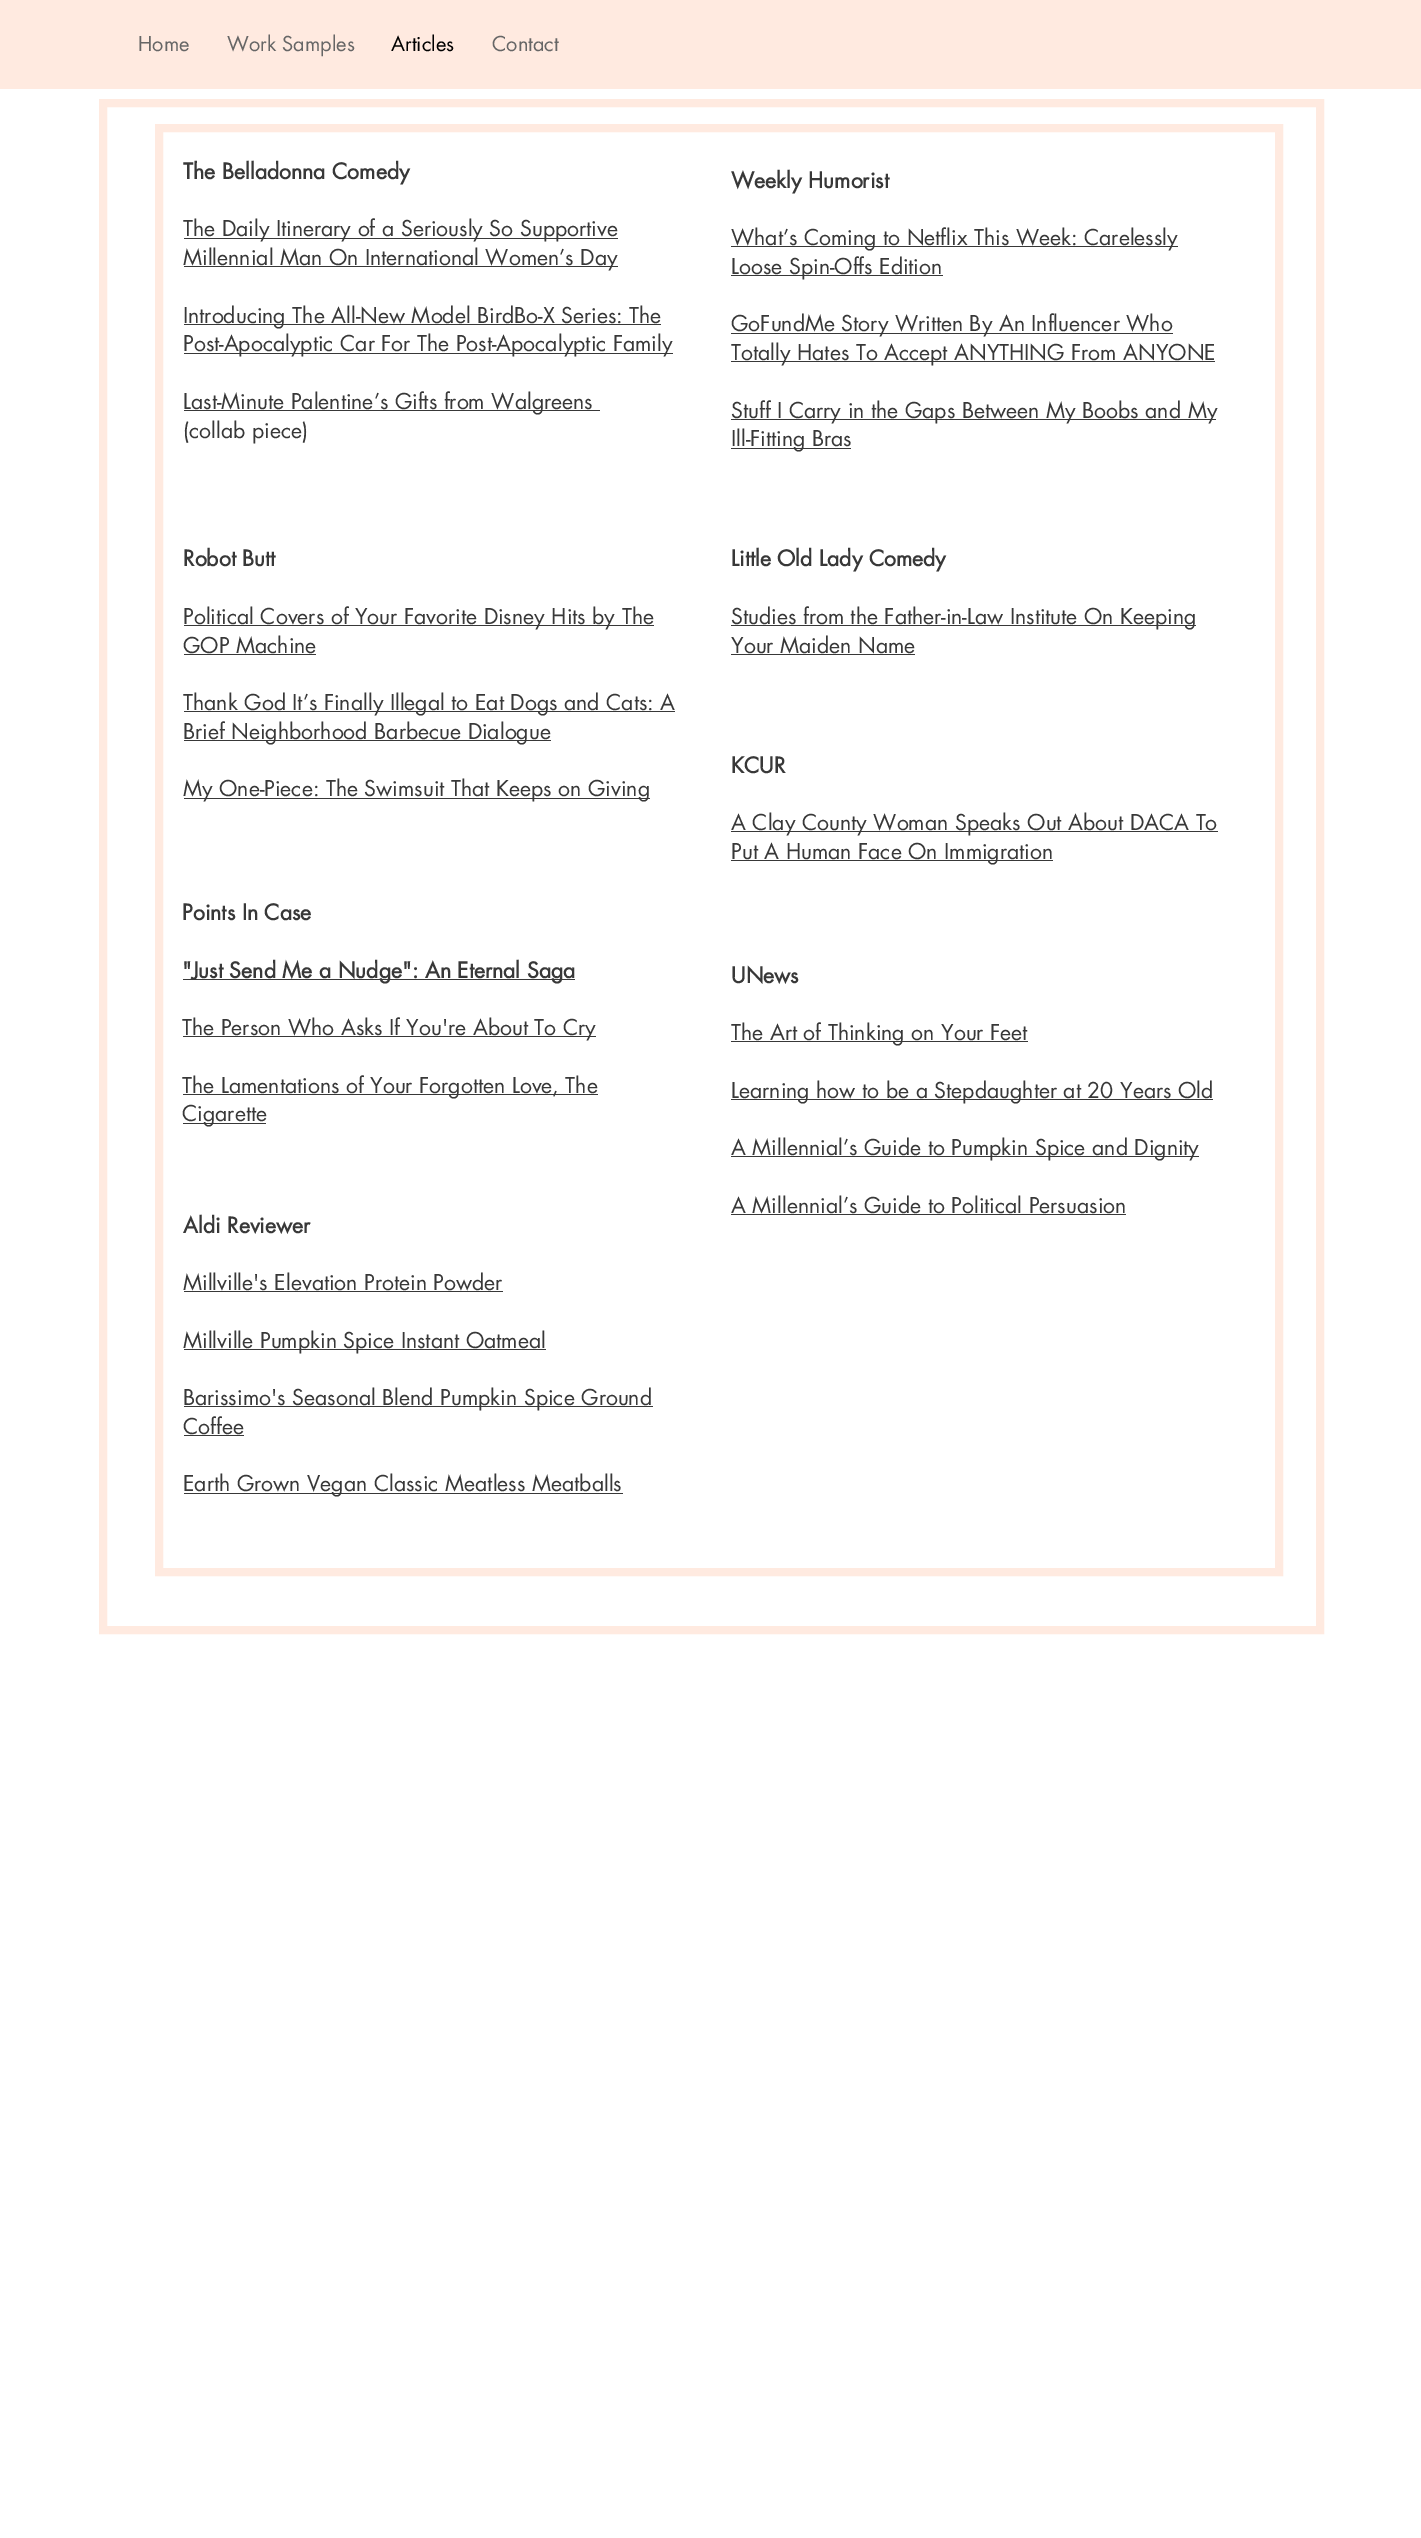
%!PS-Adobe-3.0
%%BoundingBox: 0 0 1421 2538
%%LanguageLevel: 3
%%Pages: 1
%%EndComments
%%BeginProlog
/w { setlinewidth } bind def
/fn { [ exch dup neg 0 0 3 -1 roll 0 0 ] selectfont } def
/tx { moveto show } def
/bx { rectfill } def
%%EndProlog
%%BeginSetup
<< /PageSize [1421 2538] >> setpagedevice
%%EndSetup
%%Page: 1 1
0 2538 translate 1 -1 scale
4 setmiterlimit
1 setgray
0 0 1421 2538 bx
1 0.918 0.878 setrgbcolor
0 0 1421 89 bx
/futura-Regular 20 fn
0.4 setgray
(Home) 138 51 tx
(Work Samples) 227 51 tx
0 setgray
(Articles) 391 51 tx
0.4 setgray
(Contact) 492 51 tx
1 0.918 0.878 setrgbcolor
8 w
103 103 1217 1527 rectstroke
159 128 1120 1444 rectstroke
/futura-Bold 21.25 fn
0.22 setgray
(The Belladonna Comedy) 183 179 tx
184 238 434 1 bx
/futura-Regular 21.25 fn
(The Daily Itinerary of a Seriously So Supportive) 183 236 tx
184 266 434 1 bx
(Millennial Man On International Women’s Day) 183 265 tx
184 324 477 1 bx
(Introducing The All-New Model BirdBo-X Series: The) 183 323 tx
184 353 489 1 bx
(Post-Apocalyptic Car For The Post-Apocalyptic Family) 183 351 tx
184 410 416 1 bx
(Last-Minute Palentine’s Gifts from Walgreens) 183 409 tx
(\(collab piece\)) 183 438 tx
/futura-Bold 21.25 fn
(Weekly Humorist) 731 188 tx
731 246 447 1 bx
/futura-Regular 21.25 fn
(What’s Coming to Netflix This Week: Carelessly) 731 245 tx
731 275 212 1 bx
(Loose Spin-Offs Edition) 731 274 tx
731 333 442 1 bx
(GoFundMe Story Written By An Influencer Who) 731 331 tx
731 361 484 1 bx
(Totally Hates To Accept ANYTHING From ANYONE) 731 360 tx
731 419 485 1 bx
(Stuff I Carry in the Gaps Between My Boobs and My) 731 418 tx
731 448 120 1 bx
(Ill-Fitting Bras) 731 446 tx
/futura-Bold 21.25 fn
(Robot Butt) 183 566 tx
184 625 470 1 bx
/futura-Regular 21.25 fn
(Political Covers of Your Favorite Disney Hits by The) 183 624 tx
(GOP Machine) 183 653 tx
184 654 132 1 bx
184 711 491 1 bx
(Thank God It’s Finally Illegal to Eat Dogs and Cats: A) 183 710 tx
184 740 367 1 bx
(Brief Neighborhood Barbecue Dialogue) 183 739 tx
184 798 466 1 bx
(My One-Piece: The Swimsuit That Keeps on Giving) 183 796 tx
/futura-Bold 21.25 fn
(Little Old Lady Comedy) 731 566 tx
731 625 465 1 bx
/futura-Regular 21.25 fn
(Studies from the Father-in-Law Institute On Keeping) 731 624 tx
(Your Maiden Name) 731 653 tx
731 654 184 1 bx
/futura-Bold 21.25 fn
(KCUR) 731 773 tx
731 831 487 1 bx
/futura-Regular 21.25 fn
(A Clay County Woman Speaks Out About DACA To) 731 830 tx
731 860 322 1 bx
(Put A Human Face On Immigration) 731 859 tx
/futura-Bold 21.25 fn
(Points In Case) 182 920 tx
183 979 392 1 bx
("Just Send Me a Nudge": An Eternal Saga) 182 978 tx
183 1036 413 1 bx
/futura-Regular 21.25 fn
(The Person Who Asks If You're About To Cry) 182 1035 tx
183 1094 415 1 bx
(The Lamentations of Your Forgotten Love, The) 182 1093 tx
183 1123 83 1 bx
(Cigarette) 182 1121 tx
/futura-Bold 21.25 fn
(UNews) 731 983 tx
731 1041 297 1 bx
/futura-Regular 21.25 fn
(The Art of Thinking on Your Feet) 731 1040 tx
731 1099 482 1 bx
(Learning how to be a Stepdaughter at 20 Years Old) 731 1098 tx
731 1156 468 1 bx
(A Millennial’s Guide to Pumpkin Spice and Dignity) 731 1155 tx
(A Millennial’s Guide to Political Persuasion) 731 1213 tx
731 1214 395 1 bx
/futura-Bold 21.25 fn
(Aldi Reviewer) 183 1233 tx
/futura-Regular 21.25 fn
(Millville's Elevation Protein Powder) 183 1290 tx
184 1291 319 1 bx
184 1349 362 1 bx
(Millville Pumpkin Spice Instant Oatmeal) 183 1348 tx
184 1406 469 1 bx
(Barissimo's Seasonal Blend Pumpkin Spice Ground) 183 1405 tx
(Coffee) 183 1434 tx
184 1435 60 1 bx
184 1493 439 1 bx
(Earth Grown Vegan Classic Meatless Meatballs) 183 1491 tx
showpage
%%EOF
